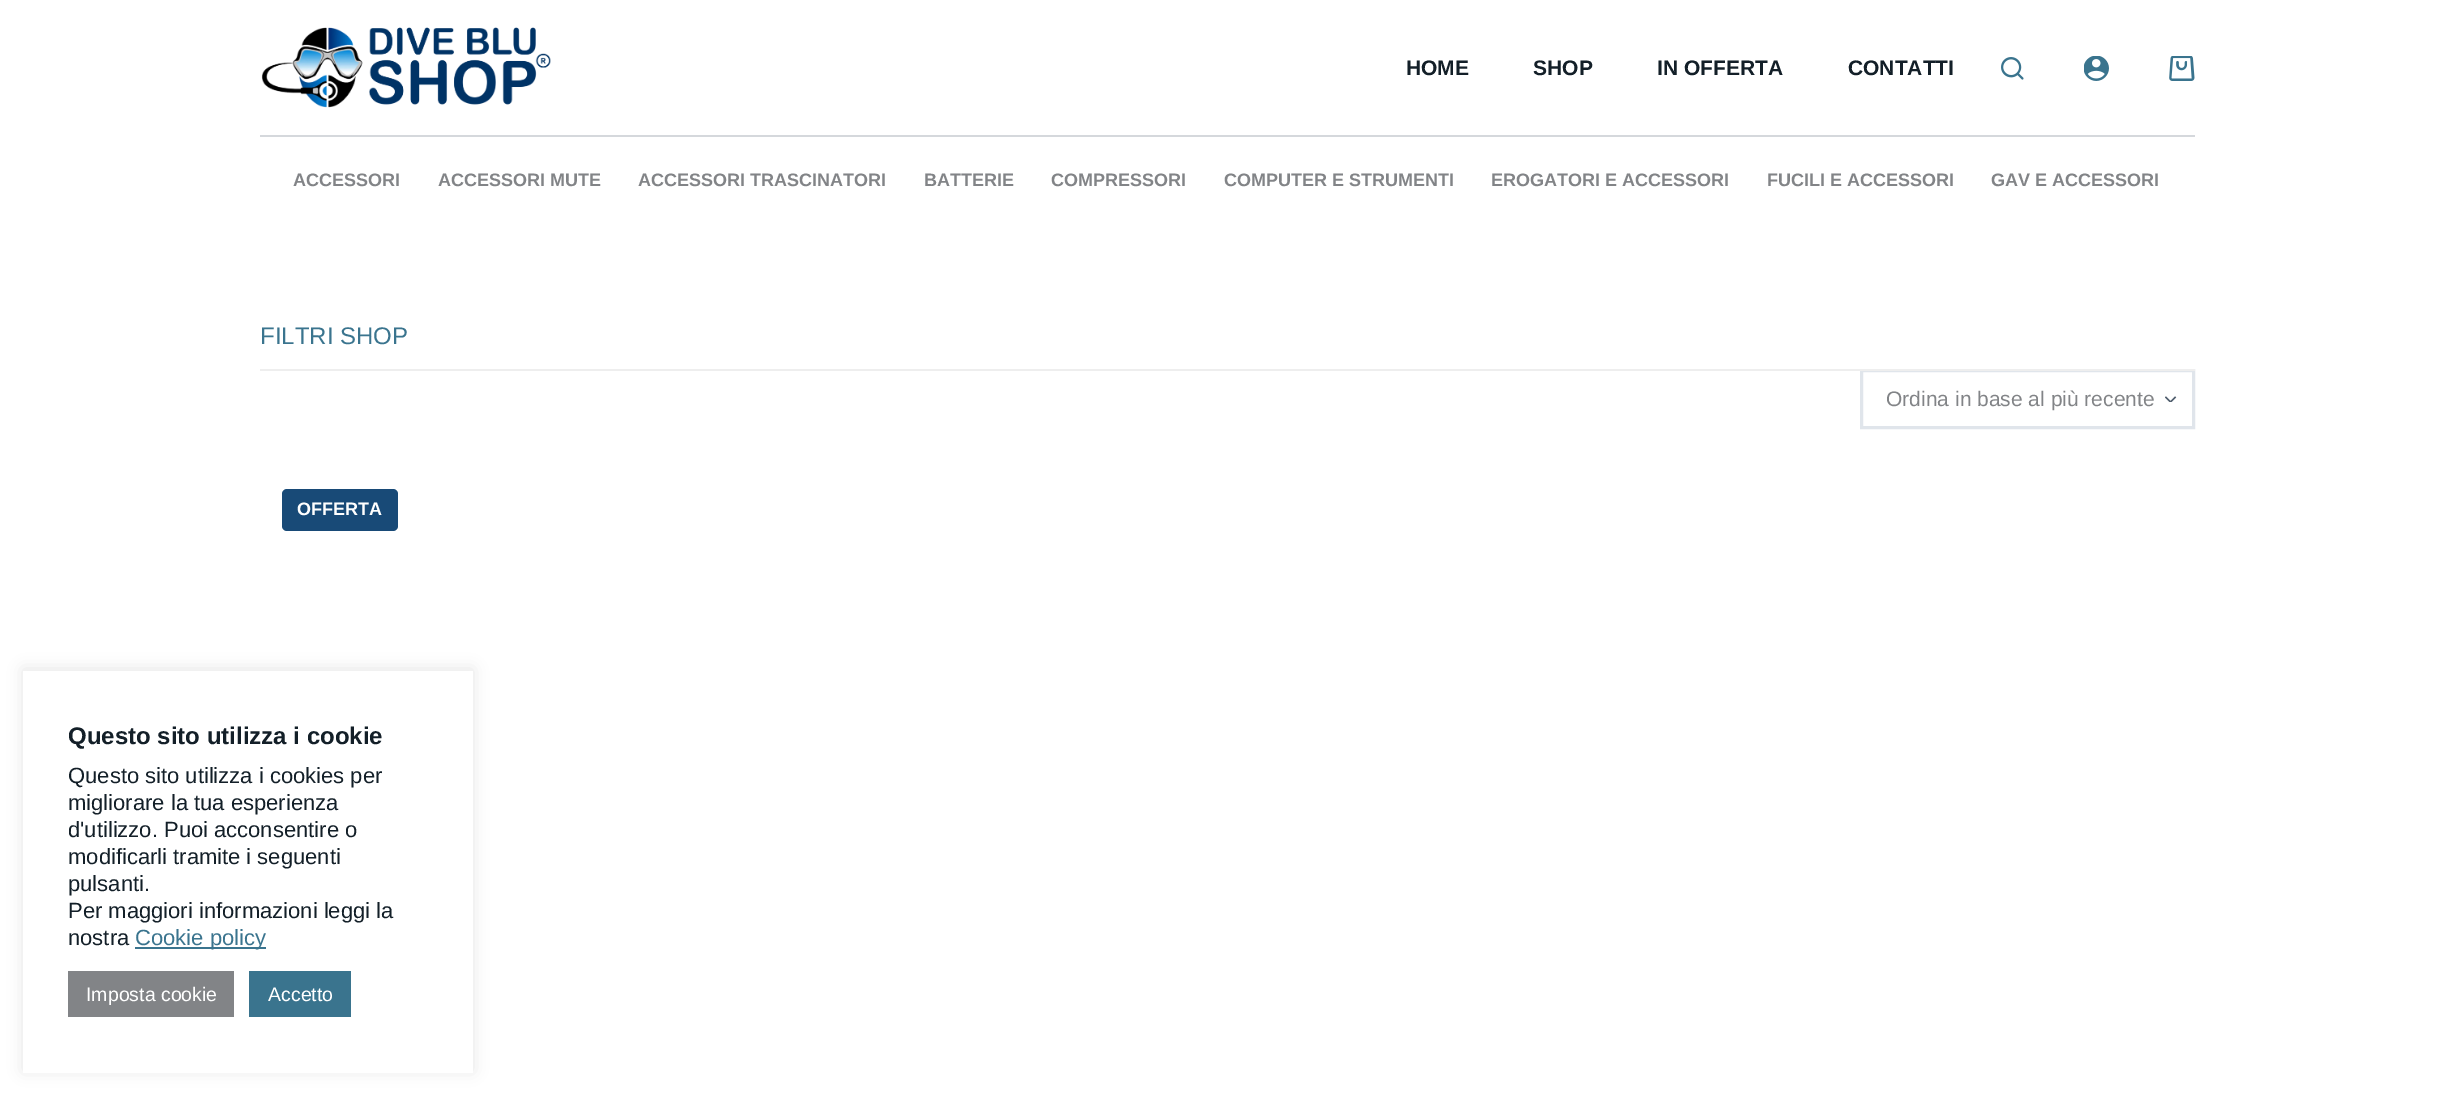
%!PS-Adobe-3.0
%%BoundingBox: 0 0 2453 1094
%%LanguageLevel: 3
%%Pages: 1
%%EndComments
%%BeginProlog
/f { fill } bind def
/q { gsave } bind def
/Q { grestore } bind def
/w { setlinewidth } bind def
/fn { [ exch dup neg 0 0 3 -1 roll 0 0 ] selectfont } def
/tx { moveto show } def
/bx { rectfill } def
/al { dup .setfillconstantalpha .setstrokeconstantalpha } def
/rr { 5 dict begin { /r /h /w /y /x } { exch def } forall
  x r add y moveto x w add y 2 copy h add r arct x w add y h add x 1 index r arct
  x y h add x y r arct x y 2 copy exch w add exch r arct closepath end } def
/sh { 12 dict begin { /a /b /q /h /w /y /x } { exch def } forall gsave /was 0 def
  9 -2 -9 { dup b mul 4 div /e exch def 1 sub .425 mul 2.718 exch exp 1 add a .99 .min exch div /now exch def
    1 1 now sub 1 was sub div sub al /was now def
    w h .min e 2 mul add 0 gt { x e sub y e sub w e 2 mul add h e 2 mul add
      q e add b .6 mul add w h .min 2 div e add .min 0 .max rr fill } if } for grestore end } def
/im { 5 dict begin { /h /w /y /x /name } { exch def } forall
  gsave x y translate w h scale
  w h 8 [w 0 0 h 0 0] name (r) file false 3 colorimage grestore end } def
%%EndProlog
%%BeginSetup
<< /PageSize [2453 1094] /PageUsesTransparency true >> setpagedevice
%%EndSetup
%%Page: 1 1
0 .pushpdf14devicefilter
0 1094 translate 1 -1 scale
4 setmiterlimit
1 setgray
0 0 2453 1094 bx
(image0.raw) 261 27 290 81 im
/LiberationSans-Bold 21 fn
0.075 0.122 0.157 setrgbcolor
(HOME) 1406 75 tx
(SHOP) 1533 75 tx
(IN OFFERTA) 1657 75 tx
(CONTATTI) 1848 75 tx
(image1.raw) 2001 57 23 23 im
(image2.raw) 2084 56 25 25 im
(image3.raw) 2169 56 26 25 im
0.835 0.847 0.863 setrgbcolor
260 135 1935 2 bx
/LiberationSans-Bold 18 fn
0.51 0.518 0.529 setrgbcolor
(ACCESSORI) 293 186 tx
(ACCESSORI MUTE) 438 186 tx
(ACCESSORI TRASCINATORI) 638 186 tx
(BATTERIE) 924 186 tx
(COMPRESSORI) 1051 186 tx
(COMPUTER E STRUMENTI) 1224 186 tx
(EROGATORI E ACCESSORI) 1491 186 tx
(FUCILI E ACCESSORI) 1767 186 tx
(GAV E ACCESSORI) 1991 186 tx
/LiberationSans-Regular 24 fn
0.227 0.455 0.557 setrgbcolor
(FILTRI SHOP) 260 344 tx
(image4.raw) 2165 396 12 6 im
0.878 0.898 0.922 setrgbcolor
3 w
1861.5 370.5 332 57 rectstroke
0.094 0.29 0.467 setrgbcolor
282 489 116 42 5 rr f
q
260 369 1935 2 rectclip
0.933 setgray
2 w
261 370 1933 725 rectstroke
Q
/LiberationSans-Regular 21 fn
0.51 0.518 0.529 setrgbcolor
(Ordina in base al più recente) 1886 406 tx
/LiberationSans-Bold 18 fn
1 setgray
(OFFERTA) 297 515 tx
0.675 0.671 0.671 setrgbcolor
23 669 450 402 0 7.5 0.3 sh
1 setgray
23 671 450 402 bx
/LiberationSans-Bold 24 fn
0.075 0.122 0.157 setrgbcolor
(Questo sito utilizza i cookie) 68 744 tx
/LiberationSans-Regular 22 fn
(Questo sito utilizza i cookies per) 68 783 tx
(migliorare la tua esperienza) 68 810 tx
(d'utilizzo. Puoi acconsentire o) 68 837 tx
(modificarli tramite i seguenti) 68 864 tx
(pulsanti.) 68 891 tx
(Per maggiori informazioni leggi la) 68 918 tx
(nostra) 68 945 tx
0.227 0.455 0.557 setrgbcolor
135 947 131 2 bx
(Cookie policy) 135 945 tx
0.51 0.518 0.529 setrgbcolor
68 971 166 46 bx
/LiberationSans-Regular 19.5 fn
1 setgray
(Imposta cookie) 86 1001 tx
0.227 0.455 0.557 setrgbcolor
249 971 102 46 bx
1 setgray
(Accetto) 268 1001 tx
.poppdf14devicefilter showpage
%%EOF
